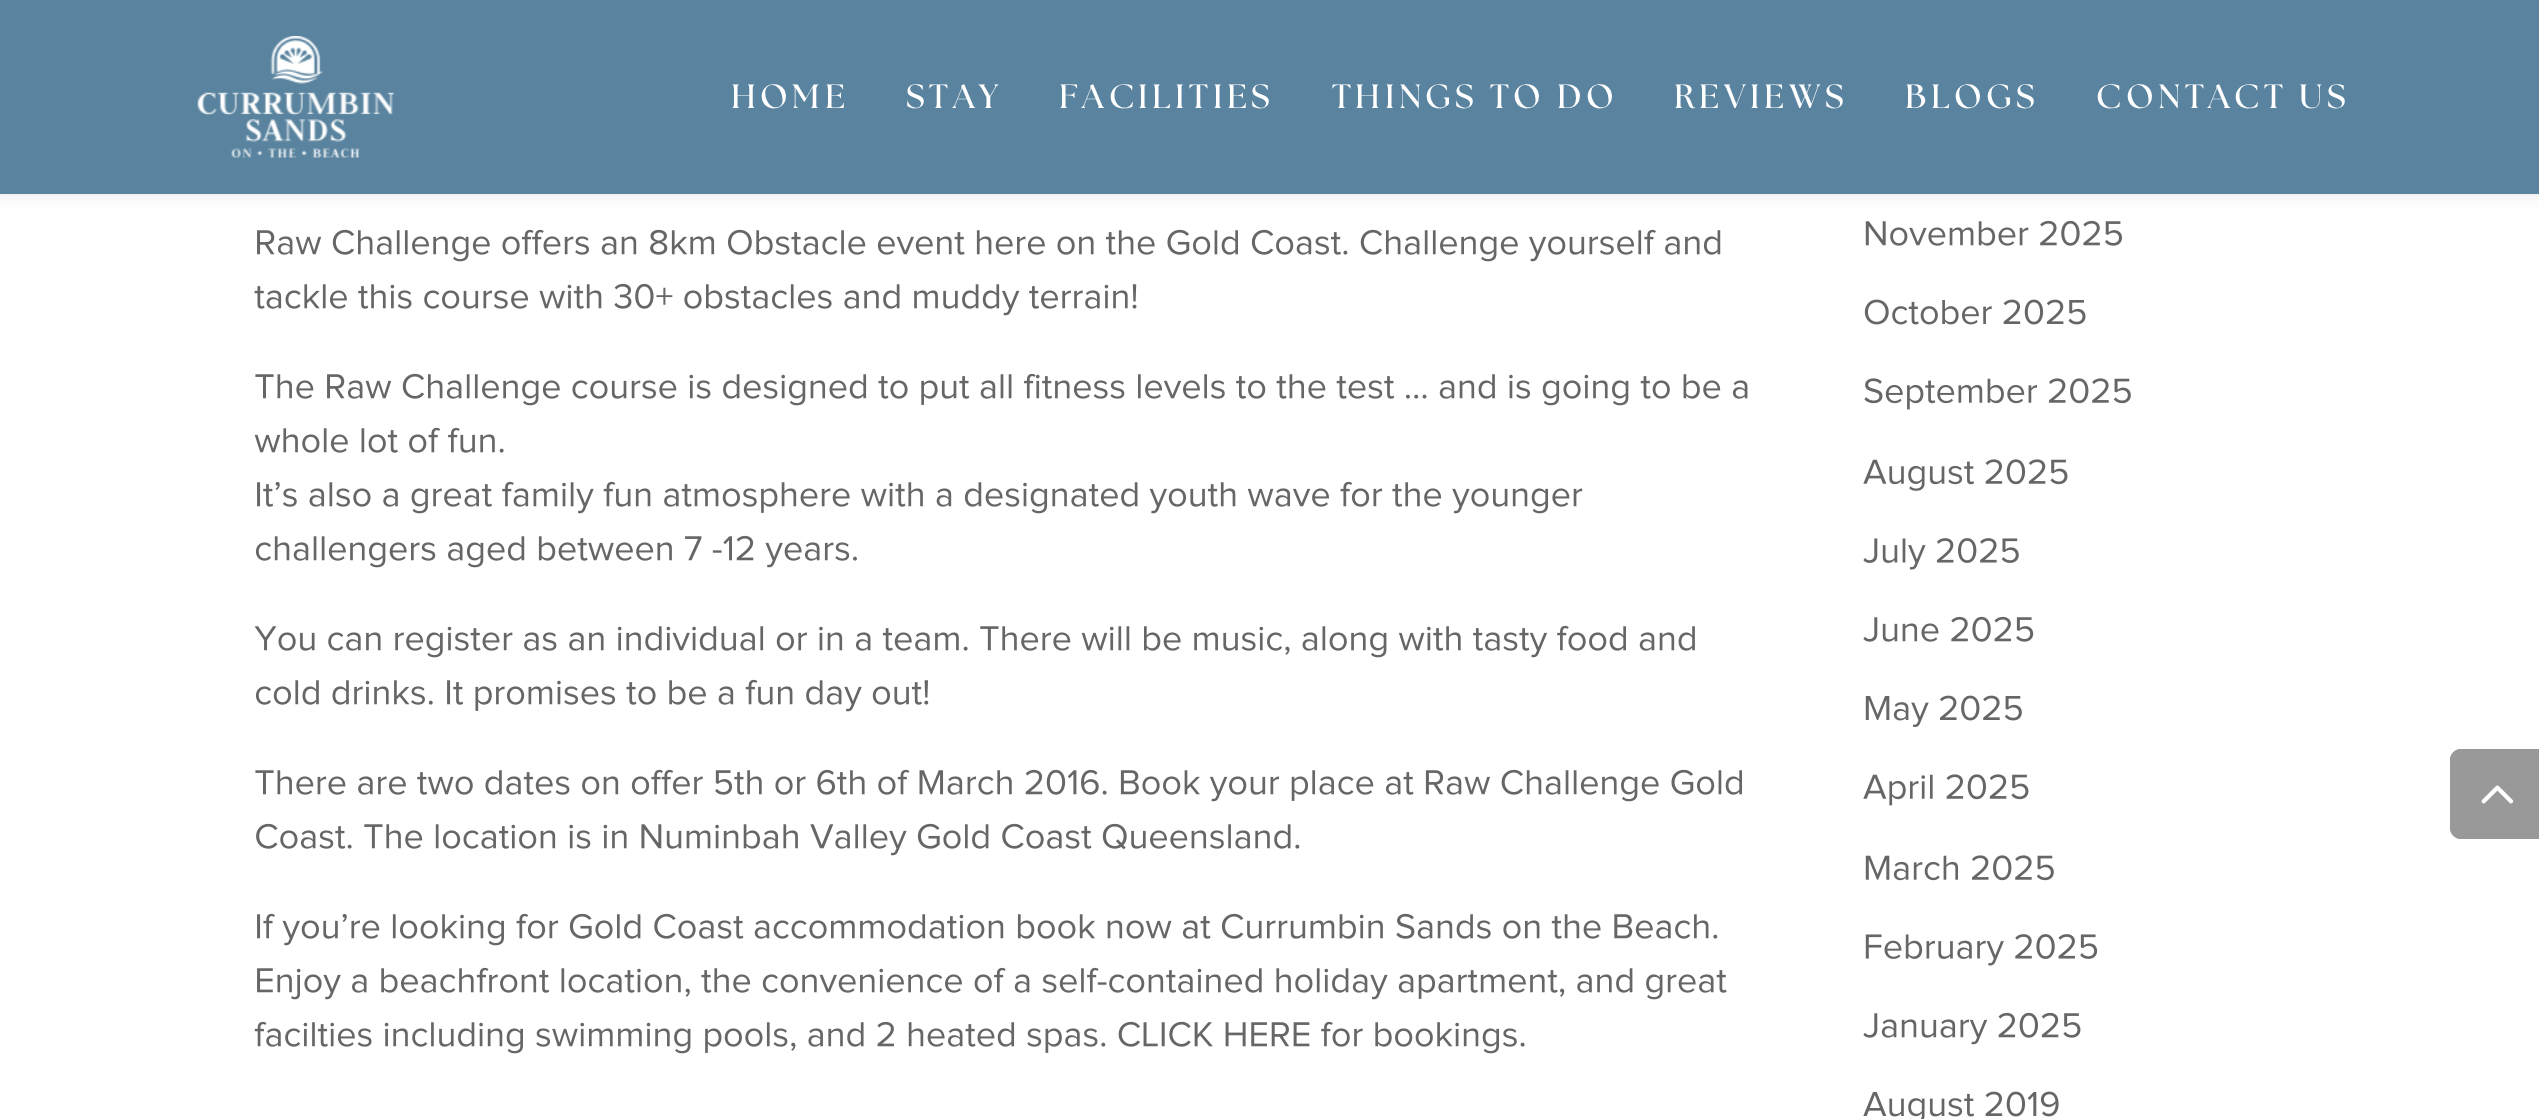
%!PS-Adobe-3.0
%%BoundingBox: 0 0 2539 1119
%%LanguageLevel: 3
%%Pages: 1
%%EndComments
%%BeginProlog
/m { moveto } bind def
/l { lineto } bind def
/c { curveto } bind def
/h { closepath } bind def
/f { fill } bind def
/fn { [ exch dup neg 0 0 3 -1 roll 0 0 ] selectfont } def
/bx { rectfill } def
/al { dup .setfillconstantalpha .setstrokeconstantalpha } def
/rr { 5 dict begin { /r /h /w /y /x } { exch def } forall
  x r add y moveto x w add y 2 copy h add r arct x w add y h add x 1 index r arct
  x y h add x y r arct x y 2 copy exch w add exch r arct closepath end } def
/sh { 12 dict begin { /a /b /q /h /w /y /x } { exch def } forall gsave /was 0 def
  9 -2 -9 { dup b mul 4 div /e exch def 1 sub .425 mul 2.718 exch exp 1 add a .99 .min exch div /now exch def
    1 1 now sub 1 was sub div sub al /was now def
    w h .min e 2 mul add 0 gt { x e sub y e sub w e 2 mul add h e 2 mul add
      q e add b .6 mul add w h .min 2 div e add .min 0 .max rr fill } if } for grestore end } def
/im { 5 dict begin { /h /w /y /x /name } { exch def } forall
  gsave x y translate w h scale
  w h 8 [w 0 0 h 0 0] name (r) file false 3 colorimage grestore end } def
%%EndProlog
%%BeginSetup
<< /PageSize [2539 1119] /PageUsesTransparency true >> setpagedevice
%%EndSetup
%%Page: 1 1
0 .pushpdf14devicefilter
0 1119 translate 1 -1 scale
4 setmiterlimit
1 setgray
0 0 2539 1119 bx
0 setgray
0 0 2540 194 0 8 0.1 sh
0.349 0.514 0.62 setrgbcolor
0 0 2539 194 bx
(image0.raw) 197 36 197 122 im
/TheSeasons-Bold 33.75 fn
1 setgray
731 108 m 4.5 0 (HOME) ashow
906 108 m 4.5 0 (STAY) ashow
1059 108 m 4.5 0 (FACILITIES) ashow
1332 108 m 4.5 0 (THINGS TO DO) ashow
1674 108 m 4.5 0 (REVIEWS) ashow
1905 108 m 4.5 0 (BLOGS) ashow
2096 108 m 4.5 0 (CONTACT US) ashow
(image1.raw) 257 229 1464 33 im
(image2.raw) 254 283 883 33 im
(image3.raw) 255 373 1493 33 im
(image4.raw) 254 427 250 26 im
(image5.raw) 257 481 1326 33 im
(image6.raw) 255 535 602 33 im
(image7.raw) 254 625 1441 33 im
(image8.raw) 255 679 674 33 im
(image9.raw) 255 769 1487 33 im
(image10.raw) 256 823 1044 33 im
(image11.raw) 257 913 1461 33 im
(image12.raw) 257 967 1470 33 im
(image13.raw) 254 1021 1271 33 im
(image14.raw) 1865 220 257 26 im
(image15.raw) 1864 299 222 26 im
(image16.raw) 1864 378 267 32 im
(image17.raw) 1863 459 205 32 im
(image18.raw) 1863 538 156 32 im
(image19.raw) 1863 616 171 26 im
(image20.raw) 1865 695 157 32 im
(image21.raw) 1863 774 166 32 im
(image22.raw) 1865 855 189 26 im
(image23.raw) 1865 934 233 32 im
(image24.raw) 1863 1012 218 33 im
(image25.raw) 1863 1091 196 28 im
0.6 setgray
2461 749 m 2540 749 l 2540 839 l 2461 839 l 2455 839 2450 834 2450 828 c 2450 760 l 2450 754 2455 749 2461 749 c h f
(image26.raw) 2481 785 33 19 im
.poppdf14devicefilter showpage
%%EOF
